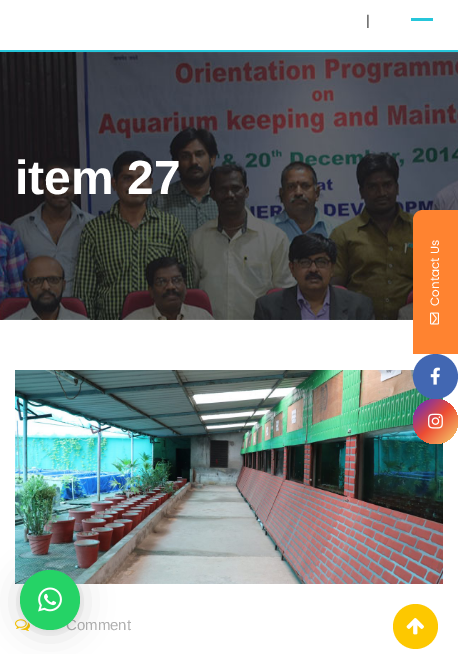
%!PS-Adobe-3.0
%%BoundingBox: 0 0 458 654
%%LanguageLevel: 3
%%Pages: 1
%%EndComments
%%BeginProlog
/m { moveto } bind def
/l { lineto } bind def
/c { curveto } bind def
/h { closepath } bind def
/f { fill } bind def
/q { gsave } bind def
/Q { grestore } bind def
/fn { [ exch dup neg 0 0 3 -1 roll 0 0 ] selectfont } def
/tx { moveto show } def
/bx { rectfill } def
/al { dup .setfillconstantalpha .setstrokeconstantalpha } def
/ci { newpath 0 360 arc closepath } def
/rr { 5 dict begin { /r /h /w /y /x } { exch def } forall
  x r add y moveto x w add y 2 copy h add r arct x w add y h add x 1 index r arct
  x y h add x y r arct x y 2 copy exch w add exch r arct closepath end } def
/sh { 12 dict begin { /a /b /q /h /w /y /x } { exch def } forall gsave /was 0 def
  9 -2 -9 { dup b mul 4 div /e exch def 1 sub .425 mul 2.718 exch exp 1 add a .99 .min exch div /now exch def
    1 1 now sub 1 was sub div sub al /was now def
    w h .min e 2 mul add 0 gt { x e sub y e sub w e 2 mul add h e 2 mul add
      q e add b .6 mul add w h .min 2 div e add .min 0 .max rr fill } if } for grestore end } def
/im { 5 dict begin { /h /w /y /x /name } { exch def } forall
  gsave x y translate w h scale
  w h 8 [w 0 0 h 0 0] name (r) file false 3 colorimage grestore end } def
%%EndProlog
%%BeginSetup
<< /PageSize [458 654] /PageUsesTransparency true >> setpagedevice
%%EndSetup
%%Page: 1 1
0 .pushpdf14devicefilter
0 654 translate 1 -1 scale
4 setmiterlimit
1 setgray
0 0 458 654 bx
/LiberationSans-Regular 14 fn
0.267 setgray
(|) 366 25 tx
0.149 0.776 0.855 setrgbcolor
0 50 458 2 bx
411 18 22 3 bx
(image0.raw) 0 52 458 268 im
/LiberationSans-Bold 48 fn
1 setgray
(item 27) 15 194 tx
(image1.raw) 15 370 428 214 im
(image2.raw) 15 619 15 12 im
/LiberationSans-Regular 15 fn
0.694 setgray
(Comment) 66 630 tx
0 setgray
361 260 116 45 10 3 0.16 sh
1 0.514 0.188 setrgbcolor
413 354 m 413 220 l 413 215 417 210 423 210 c 458 210 l 458 354 l h f
/Poppins-Regular 12 fn
1 setgray
q 439 306 translate -90 rotate 0 0 m (Contact Us) show Q
(image3.raw) 430 312 9 13 im
0.259 0.404 0.698 setrgbcolor
435.5 376.5 22.5 ci f
(image4.raw) 430 367 10 18 im
q 435.5 421.5 22.5 ci clip newpath
<< /ShadingType 2 /ColorSpace /DeviceRGB /Coords [413 399 458 444] /Extend [true true] /Function << /FunctionType 3 /Domain [0 1] /Functions [<< /FunctionType 2 /Domain [0 1] /C0 [0.345 0.169 0.804] /C1 [0.929 0.298 0.2] /N 1 >> << /FunctionType 2 /Domain [0 1] /C0 [0.929 0.298 0.2] /C1 [0.969 0.827 0.435] /N 1 >>] /Bounds [0.5] /Encode [0 1 0 1] >> >> shfill Q
(image5.raw) 428 413 15 16 im
0 setgray
20 572 60 60 30 16 0.16 sh
20 571 60 60 30 3 0.06 sh
0.145 0.827 0.4 setrgbcolor
50 600 30 ci f
(image6.raw) 38 587 24 25 im
0.992 0.784 0 setrgbcolor
415.5 626.5 22.5 ci f
(image7.raw) 406 618 18 17 im
.poppdf14devicefilter showpage
%%EOF
